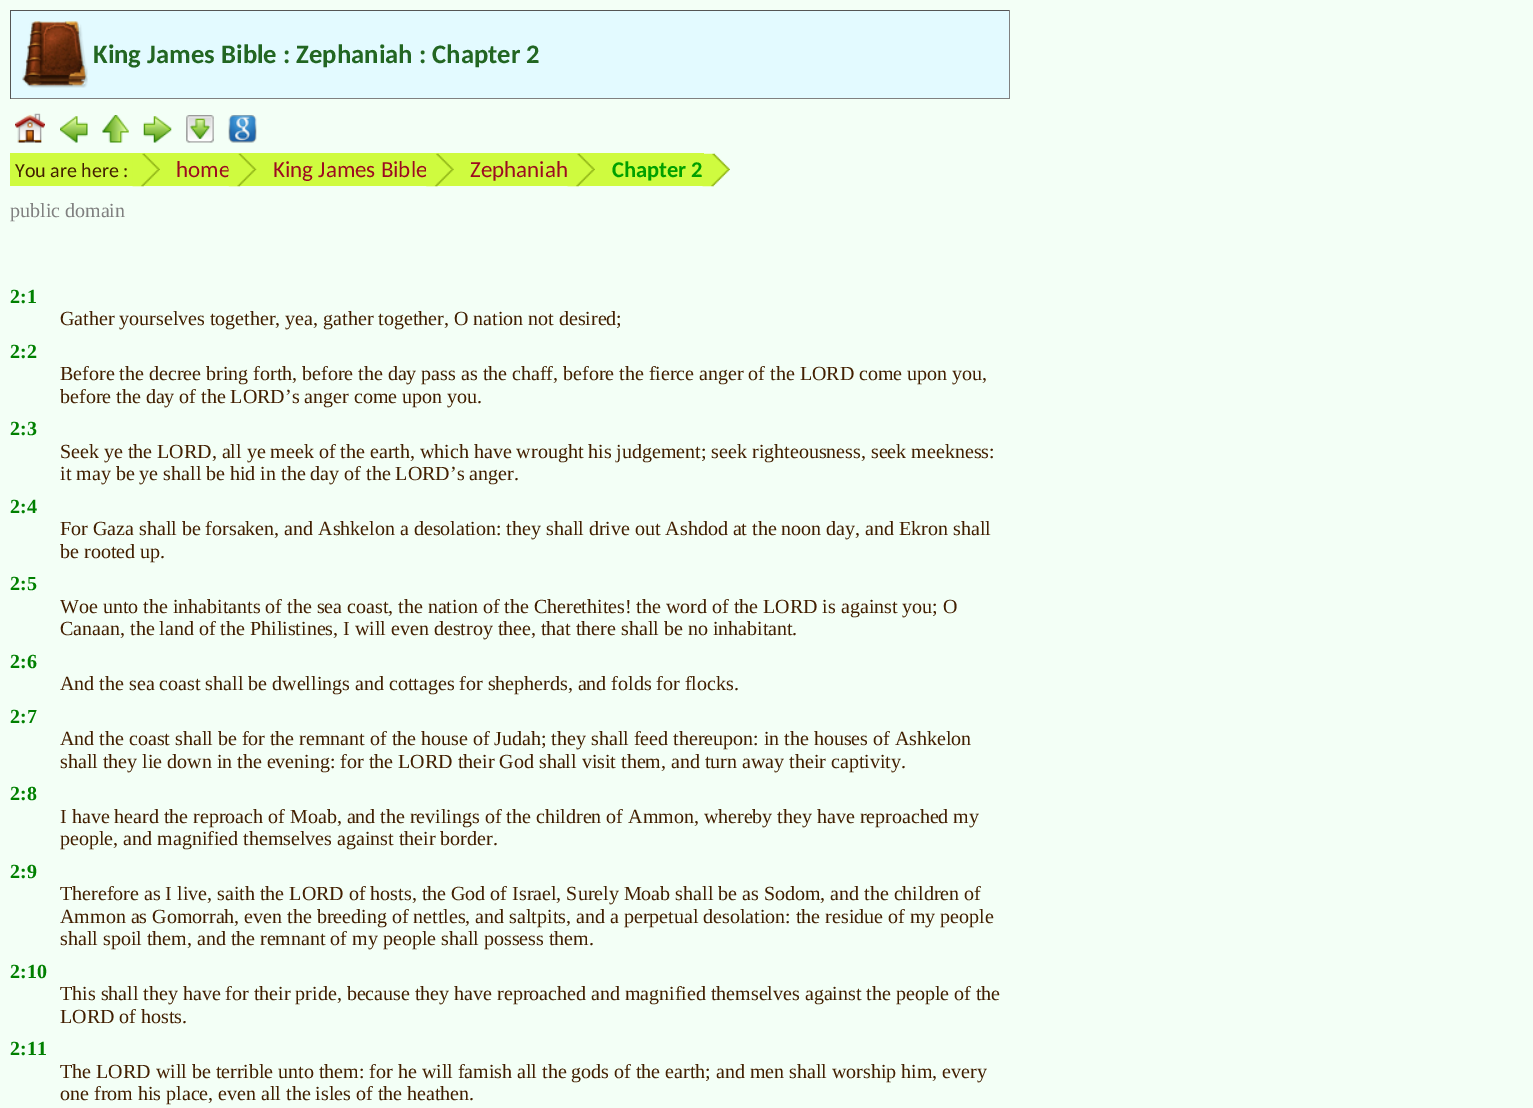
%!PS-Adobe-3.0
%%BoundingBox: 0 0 1533 1108
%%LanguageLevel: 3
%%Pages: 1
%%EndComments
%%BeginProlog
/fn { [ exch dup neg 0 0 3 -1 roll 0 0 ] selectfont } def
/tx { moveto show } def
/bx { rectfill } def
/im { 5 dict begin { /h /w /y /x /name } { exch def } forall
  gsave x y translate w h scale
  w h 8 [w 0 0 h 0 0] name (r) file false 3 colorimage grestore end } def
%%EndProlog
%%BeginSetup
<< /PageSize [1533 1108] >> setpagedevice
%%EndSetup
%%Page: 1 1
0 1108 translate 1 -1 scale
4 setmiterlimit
0.953 1 0.965 setrgbcolor
0 0 1533 1108 bx
0.89 0.98 1 setrgbcolor
11 11 998 87 bx
0.333 setgray
10 10 1000 1 bx
0.502 setgray
1009 10 1 89 bx
10 98 1000 1 bx
0.333 setgray
10 10 1 89 bx
(image0.raw) 22 21 66 67 im
/Carlito-Bold 26.7 fn
0.133 0.4 0.133 setrgbcolor
(King James Bible : Zephaniah : Chapter 2) 93 63 tx
(image1.raw) 15 113 30 30 im
(image2.raw) 60 116 28 27 im
(image3.raw) 102 115 27 28 im
(image4.raw) 143 116 29 27 im
(image5.raw) 186 115 28 28 im
(image6.raw) 228 115 29 28 im
0.812 0.984 0.247 setrgbcolor
10 153 416 33 bx
/Carlito-Regular 20 fn
0.259 0.122 0 setrgbcolor
(You are here :) 15 177 tx
(image7.raw) 132 153 28 34 im
/Carlito-Regular 23 fn
0.616 0.043 0.129 setrgbcolor
(home) 176 177 tx
(image8.raw) 228 153 29 34 im
(King James Bible) 273 177 tx
0.812 0.984 0.247 setrgbcolor
426 153 278 33 bx
(image9.raw) 426 153 28 34 im
0.616 0.043 0.129 setrgbcolor
(Zephaniah) 470 177 tx
(image10.raw) 567 153 28 34 im
/Carlito-Bold 22.5 fn
0 0.627 0 setrgbcolor
(Chapter 2) 612 177 tx
(image11.raw) 702 153 28 34 im
/LiberationSerif-Regular 20 fn
0.502 setgray
(public domain) 10 217 tx
/LiberationSerif-Bold 20 fn
0 0.502 0 setrgbcolor
(2:1) 10 303 tx
/LiberationSerif-Regular 20 fn
0.259 0.122 0 setrgbcolor
(Gather yourselves together, yea, gather together, O nation not desired;) 60 325 tx
/LiberationSerif-Bold 20 fn
0 0.502 0 setrgbcolor
(2:2) 10 358 tx
/LiberationSerif-Regular 20 fn
0.259 0.122 0 setrgbcolor
(Before the decree bring forth, before the day pass as the chaff, before the fierce anger of the LORD come upon you,) 60 380 tx
(before the day of the LORD’s anger come upon you.) 60 403 tx
/LiberationSerif-Bold 20 fn
0 0.502 0 setrgbcolor
(2:3) 10 435 tx
/LiberationSerif-Regular 20 fn
0.259 0.122 0 setrgbcolor
(Seek ye the LORD, all ye meek of the earth, which have wrought his judgement; seek righteousness, seek meekness:) 60 458 tx
(it may be ye shall be hid in the day of the LORD’s anger.) 60 480 tx
/LiberationSerif-Bold 20 fn
0 0.502 0 setrgbcolor
(2:4) 10 513 tx
/LiberationSerif-Regular 20 fn
0.259 0.122 0 setrgbcolor
(For Gaza shall be forsaken, and Ashkelon a desolation: they shall drive out Ashdod at the noon day, and Ekron shall) 60 535 tx
(be rooted up.) 60 558 tx
/LiberationSerif-Bold 20 fn
0 0.502 0 setrgbcolor
(2:5) 10 590 tx
/LiberationSerif-Regular 20 fn
0.259 0.122 0 setrgbcolor
(Woe unto the inhabitants of the sea coast, the nation of the Cherethites! the word of the LORD is against you; O) 60 613 tx
(Canaan, the land of the Philistines, I will even destroy thee, that there shall be no inhabitant.) 60 635 tx
/LiberationSerif-Bold 20 fn
0 0.502 0 setrgbcolor
(2:6) 10 668 tx
/LiberationSerif-Regular 20 fn
0.259 0.122 0 setrgbcolor
(And the sea coast shall be dwellings and cottages for shepherds, and folds for flocks.) 60 690 tx
/LiberationSerif-Bold 20 fn
0 0.502 0 setrgbcolor
(2:7) 10 723 tx
/LiberationSerif-Regular 20 fn
0.259 0.122 0 setrgbcolor
(And the coast shall be for the remnant of the house of Judah; they shall feed thereupon: in the houses of Ashkelon) 60 745 tx
(shall they lie down in the evening: for the LORD their God shall visit them, and turn away their captivity.) 60 768 tx
/LiberationSerif-Bold 20 fn
0 0.502 0 setrgbcolor
(2:8) 10 800 tx
/LiberationSerif-Regular 20 fn
0.259 0.122 0 setrgbcolor
(I have heard the reproach of Moab, and the revilings of the children of Ammon, whereby they have reproached my) 60 823 tx
(people, and magnified themselves against their border.) 60 845 tx
/LiberationSerif-Bold 20 fn
0 0.502 0 setrgbcolor
(2:9) 10 878 tx
/LiberationSerif-Regular 20 fn
0.259 0.122 0 setrgbcolor
(Therefore as I live, saith the LORD of hosts, the God of Israel, Surely Moab shall be as Sodom, and the children of) 60 900 tx
(Ammon as Gomorrah, even the breeding of nettles, and saltpits, and a perpetual desolation: the residue of my people) 60 923 tx
(shall spoil them, and the remnant of my people shall possess them.) 60 945 tx
/LiberationSerif-Bold 20 fn
0 0.502 0 setrgbcolor
(2:10) 10 978 tx
/LiberationSerif-Regular 20 fn
0.259 0.122 0 setrgbcolor
(This shall they have for their pride, because they have reproached and magnified themselves against the people of the) 60 1000 tx
(LORD of hosts.) 60 1023 tx
/LiberationSerif-Bold 20 fn
0 0.502 0 setrgbcolor
(2:11) 10 1055 tx
/LiberationSerif-Regular 20 fn
0.259 0.122 0 setrgbcolor
(The LORD will be terrible unto them: for he will famish all the gods of the earth; and men shall worship him, every) 60 1078 tx
(one from his place, even all the isles of the heathen.) 60 1100 tx
showpage
%%EOF
